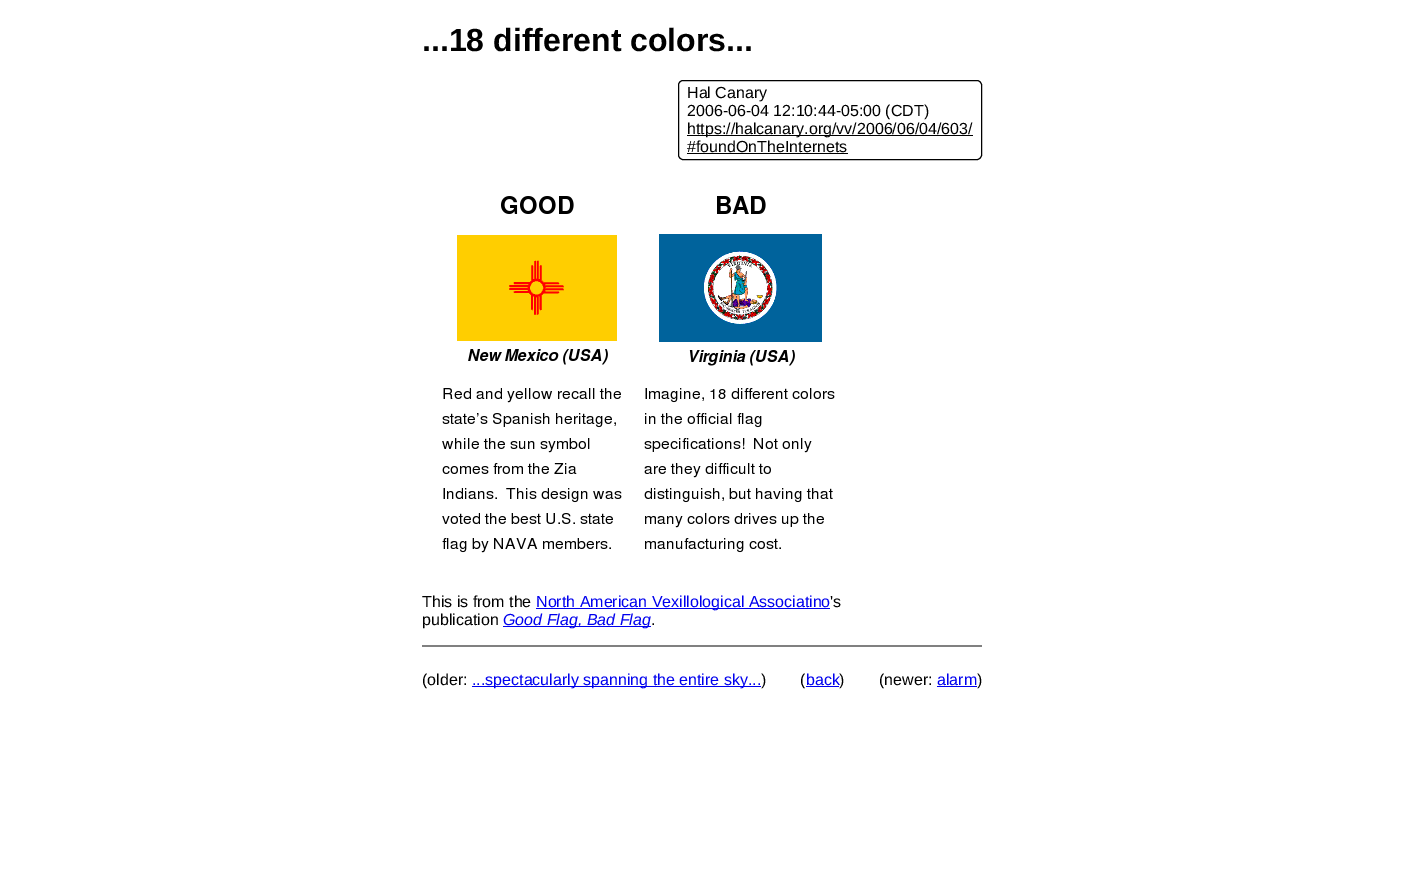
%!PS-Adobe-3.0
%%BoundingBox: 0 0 1404 874
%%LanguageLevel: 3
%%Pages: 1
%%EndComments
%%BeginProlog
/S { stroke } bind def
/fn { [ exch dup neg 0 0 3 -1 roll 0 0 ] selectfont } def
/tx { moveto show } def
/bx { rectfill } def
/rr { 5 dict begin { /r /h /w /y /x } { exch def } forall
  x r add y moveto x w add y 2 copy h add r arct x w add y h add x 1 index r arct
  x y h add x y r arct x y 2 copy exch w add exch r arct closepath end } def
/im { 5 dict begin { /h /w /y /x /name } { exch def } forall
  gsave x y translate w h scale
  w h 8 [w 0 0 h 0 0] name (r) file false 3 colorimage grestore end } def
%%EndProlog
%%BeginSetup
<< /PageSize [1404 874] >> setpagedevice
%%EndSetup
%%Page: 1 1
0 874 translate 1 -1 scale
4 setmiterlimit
1 setgray
0 0 1404 874 bx
/LiberationSans-Bold 32 fn
0 setgray
(...18 different colors...) 422 51 tx
678.5 80.5 303 79 4.5 rr S
/LiberationSans-Regular 16 fn
(Hal Canary) 687 98 tx
(2006-06-04 12:10:44-05:00 \(CDT\)) 687 116 tx
687 135 286 1 bx
(https://halcanary.org/vv/2006/06/04/603/) 687 134 tx
(#foundOnTheInternets) 687 152 tx
687 153 161 1 bx
(image0.raw) 442 196 393 357 im
(This is from the) 422 607 tx
0 0 0.933 setrgbcolor
536 608 294 1 bx
(North American Vexillological Associatino) 536 607 tx
0 setgray
('s) 830 607 tx
(publication) 422 625 tx
0 0 0.933 setrgbcolor
503 626 148 1 bx
/LiberationSans-Italic 16 fn
(Good Flag, Bad Flag) 503 625 tx
/LiberationSans-Regular 16 fn
0 setgray
(.) 651 625 tx
0.502 setgray
422 645 560 2 bx
0 setgray
(\(older:) 422 685 tx
0 0 0.933 setrgbcolor
472 686 289 1 bx
(...spectacularly spanning the entire sky...) 472 685 tx
0 setgray
(\)) 761 685 tx
(\() 800 685 tx
0 0 0.933 setrgbcolor
(back) 806 685 tx
806 686 33 1 bx
0 setgray
(\)) 839 685 tx
(\(newer:) 879 685 tx
0 0 0.933 setrgbcolor
(alarm) 937 685 tx
937 686 40 1 bx
0 setgray
(\)) 977 685 tx
showpage
%%EOF
